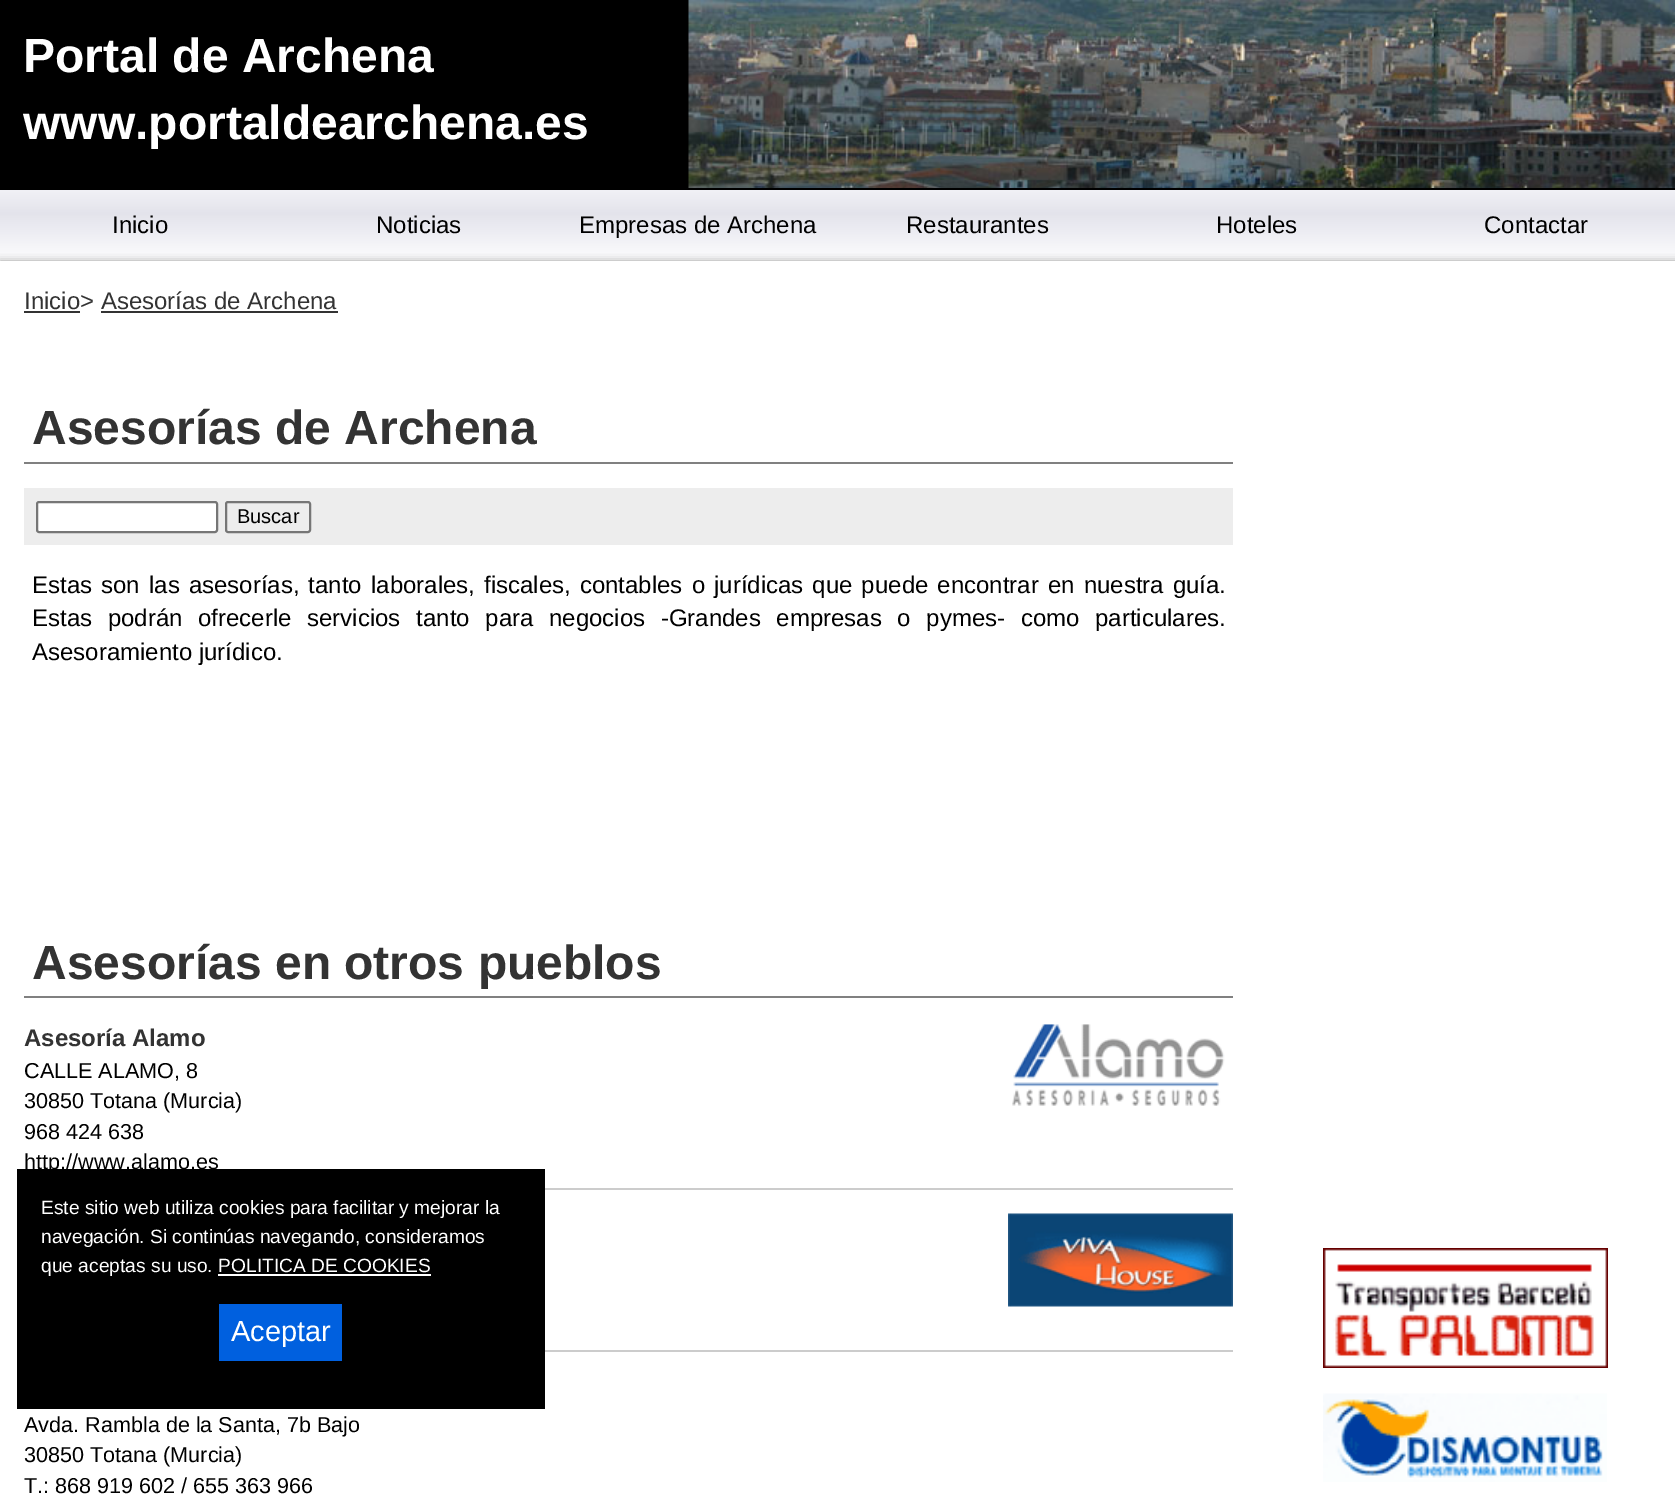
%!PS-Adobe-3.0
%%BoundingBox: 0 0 1675 1504
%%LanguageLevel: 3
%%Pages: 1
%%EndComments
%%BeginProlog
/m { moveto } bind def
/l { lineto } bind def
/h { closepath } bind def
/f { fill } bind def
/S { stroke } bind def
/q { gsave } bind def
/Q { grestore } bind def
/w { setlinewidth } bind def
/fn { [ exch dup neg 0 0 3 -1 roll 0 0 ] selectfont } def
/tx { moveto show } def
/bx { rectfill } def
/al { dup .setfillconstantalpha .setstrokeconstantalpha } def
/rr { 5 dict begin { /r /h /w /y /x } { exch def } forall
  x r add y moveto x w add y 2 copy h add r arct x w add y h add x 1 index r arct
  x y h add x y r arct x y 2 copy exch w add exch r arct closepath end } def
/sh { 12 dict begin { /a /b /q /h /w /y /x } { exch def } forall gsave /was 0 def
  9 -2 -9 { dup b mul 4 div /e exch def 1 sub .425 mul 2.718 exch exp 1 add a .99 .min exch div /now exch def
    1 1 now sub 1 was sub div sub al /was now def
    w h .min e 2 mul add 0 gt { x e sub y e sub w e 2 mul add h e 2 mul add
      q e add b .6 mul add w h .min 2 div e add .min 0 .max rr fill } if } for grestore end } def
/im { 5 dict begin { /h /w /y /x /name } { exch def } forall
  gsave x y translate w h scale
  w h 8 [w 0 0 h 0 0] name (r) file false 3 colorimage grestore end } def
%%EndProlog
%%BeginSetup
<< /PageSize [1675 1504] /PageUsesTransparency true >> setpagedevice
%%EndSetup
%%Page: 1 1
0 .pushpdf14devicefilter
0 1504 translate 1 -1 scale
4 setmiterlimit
1 setgray
0 0 1675 1504 bx
0 setgray
0 0 689 188 bx
(image0.raw) 688 0 987 188 im
/LiberationSans-Bold 48 fn
1 setgray
(Portal de Archena) 23 72 tx
(www.portaldearchena.es) 23 139 tx
q 0 190 m 1675 190 l 1675 259 l 0 259 l h clip newpath
<< /ShadingType 2 /ColorSpace /DeviceRGB /Coords [838 189 838 264] /Extend [true true] /Function << /FunctionType 3 /Domain [0 1] /Functions [<< /FunctionType 2 /Domain [0 1] /C0 [0.949 0.949 0.965] /C1 [0.89 0.89 0.922] /N 1 >> << /FunctionType 2 /Domain [0 1] /C0 [0.89 0.89 0.922] /C1 [1 1 1] /N 1 >>] /Bounds [0.32] /Encode [0 1 0 1] >> >> shfill Q
0 setgray
0 188 1675 2 bx
/LiberationSans-Regular 24 fn
(Inicio) 112 233 tx
(Noticias) 376 233 tx
(Empresas de Archena) 579 233 tx
(Restaurantes) 906 233 tx
(Hoteles) 1216 233 tx
(Contactar) 1484 233 tx
q
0 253 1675 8 rectclip
0.6 setgray
0 261 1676 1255 0 4 1 sh
Q
0.2 setgray
(Inicio> Asesorías de Archena) 24 309 tx
24 311 56 2 bx
101 311 237 2 bx
0.502 setgray
24 462 1209 2 bx
/LiberationSans-Bold 48 fn
0.2 setgray
(Asesorías de Archena) 32 444 tx
0.929 setgray
24 488 1209 57 bx
1 setgray
37 502 180 30 2 rr q f Q
0.463 setgray
2 w
S
226 502 84 30 2 rr S
/LiberationSans-Regular 20 fn
0 setgray
(Buscar) 237 523 tx
/LiberationSans-Regular 24 fn
32 593 m 2.4 0 32 (Estas son las asesorías, tanto laborales, fiscales, contables o jurídicas que puede encontrar en nuestra guía.) widthshow
32 626 m 9 0 32 (Estas podrán ofrecerle servicios tanto para negocios -Grandes empresas o pymes- como particulares.) widthshow
(Asesoramiento jurídico.) 32 660 tx
0.502 setgray
24 996 1209 2 bx
/LiberationSans-Bold 48 fn
0.2 setgray
(Asesorías en otros pueblos) 32 979 tx
/LiberationSans-Bold 24 fn
(Asesoría Alamo) 24 1046 tx
(image1.raw) 1012 1024 213 82 im
0.8 setgray
545 1188 688 2 bx
/LiberationSans-Regular 21.6 fn
0 setgray
(CALLE ALAMO, 8) 24 1078 tx
(30850 Totana \(Murcia\)) 24 1108 tx
(968 424 638) 24 1139 tx
(http://www.alamo.es) 24 1169 tx
(image2.raw) 1008 1213 225 94 im
0.8 setgray
545 1350 688 2 bx
0 setgray
(Avda. Rambla de la Santa, 7b Bajo) 24 1432 tx
(30850 Totana \(Murcia\)) 24 1462 tx
(T.: 868 919 602 / 655 363 966) 24 1493 tx
(image3.raw) 1323 1248 285 120 im
(image4.raw) 1323 1393 284 89 im
17 1169 528 240 bx
/LiberationSans-Regular 19.2 fn
1 setgray
(Este sitio web utiliza cookies para facilitar y mejorar la) 41 1214 tx
(navegación. Si continúas navegando, consideramos) 41 1243 tx
(que aceptas su uso. POLITICA DE COOKIES) 41 1272 tx
218 1274 213 2 bx
0 0.376 0.875 setrgbcolor
219 1304 123 57 bx
/LiberationSans-Regular 29 fn
1 setgray
(Aceptar) 231 1341 tx
.poppdf14devicefilter showpage
%%EOF
